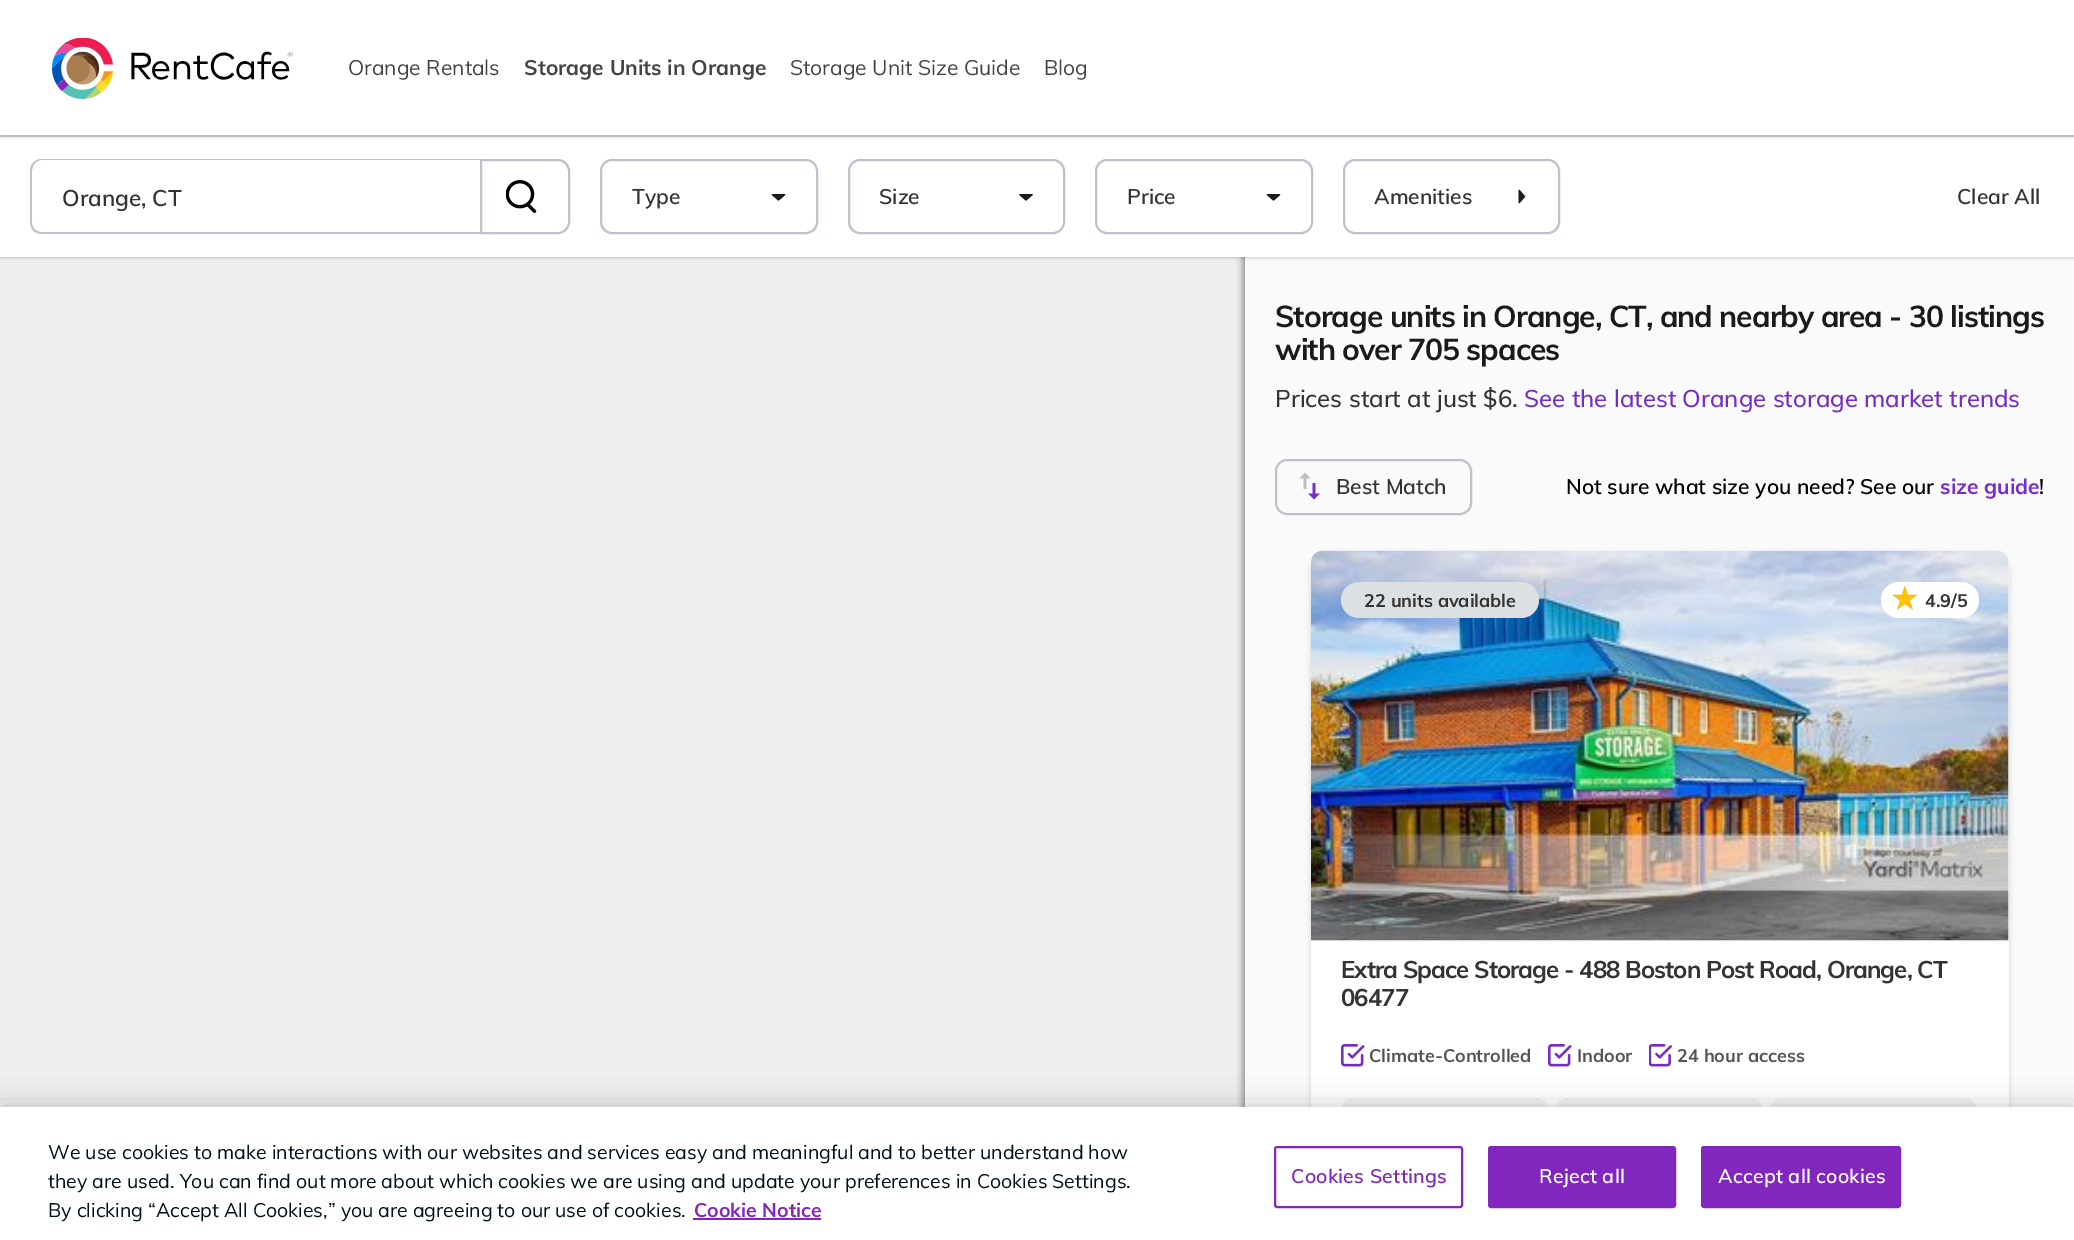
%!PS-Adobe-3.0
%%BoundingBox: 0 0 2074 1240
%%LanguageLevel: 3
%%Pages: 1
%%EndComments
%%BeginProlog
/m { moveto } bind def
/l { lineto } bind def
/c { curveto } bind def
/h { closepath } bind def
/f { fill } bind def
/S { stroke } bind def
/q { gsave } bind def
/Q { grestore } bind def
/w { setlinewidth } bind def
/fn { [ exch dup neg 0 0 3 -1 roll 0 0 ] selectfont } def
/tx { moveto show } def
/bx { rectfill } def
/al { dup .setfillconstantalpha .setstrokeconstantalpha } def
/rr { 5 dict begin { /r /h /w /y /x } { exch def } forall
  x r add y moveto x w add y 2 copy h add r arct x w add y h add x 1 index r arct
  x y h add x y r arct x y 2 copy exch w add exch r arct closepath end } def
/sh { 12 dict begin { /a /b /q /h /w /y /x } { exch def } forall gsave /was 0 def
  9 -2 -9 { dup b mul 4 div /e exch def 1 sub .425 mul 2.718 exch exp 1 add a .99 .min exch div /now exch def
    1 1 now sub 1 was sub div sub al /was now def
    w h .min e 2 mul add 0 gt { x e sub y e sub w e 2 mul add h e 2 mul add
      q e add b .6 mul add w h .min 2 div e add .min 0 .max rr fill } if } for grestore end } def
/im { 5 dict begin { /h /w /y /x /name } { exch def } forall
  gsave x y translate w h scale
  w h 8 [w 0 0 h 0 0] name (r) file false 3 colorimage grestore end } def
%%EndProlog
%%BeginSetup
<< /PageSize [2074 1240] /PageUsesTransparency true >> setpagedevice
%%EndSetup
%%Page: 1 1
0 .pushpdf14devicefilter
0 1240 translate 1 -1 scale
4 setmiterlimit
0.933 setgray
0 0 2074 1240 bx
0.878 setgray
0 135 2074 2 bx
0 setgray
1242 255 830 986 0 3 0.35 sh
0.98 setgray
1245 257 829 850 bx
0 setgray
0 138 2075 120 0 1.5 0.18 sh
1 setgray
0 137 2074 120 bx
0 setgray
0 2 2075 135 0 1.5 0.18 sh
1 setgray
0 0 2074 135 bx
(image0.raw) 52 38 241 61 im
/Mulish-Regular 21 fn
0.267 setgray
(Orange Rentals) 348 75 tx
/Mulish-Bold 21 fn
(Storage Units in Orange) 524 75 tx
/Mulish-Regular 21 fn
(Storage Unit Size Guide) 790 75 tx
(Blog) 1044 75 tx
0.741 0.761 0.796 setrgbcolor
42 159 m 480 159 l 480 234 l 42 234 l 35 234 30 229 30 222 c 30 171 l 30 164 35 159 42 159 c h 42 160 m 480 160 l 480 232 l 42 232 l 36 232 32 228 32 222 c 32 171 l 32 165 36 160 42 160 c h eofill
/Mulish-SemiBold 22.5 fn
0.2 setgray
(Orange, CT) 62 206 tx
0.741 0.761 0.796 setrgbcolor
2 w
481.5 160 m 558 160 l 564 160 569 165 569 171 c 569 222 l 569 228 564 233 558 233 c 481.5 233 l 481 233 481 233 481 232.5 c 481 160.5 l 481 160 481 160 481.5 160 c h S
(image1.raw) 506 180 31 33 im
601 160 216 73 11 rr S
/Mulish-SemiBold 21 fn
0.2 setgray
(Type) 632 204 tx
(image2.raw) 771 194 15 7 im
0.741 0.761 0.796 setrgbcolor
849 160 215 73 11 rr S
0.2 setgray
(Size) 879 204 tx
(image3.raw) 1019 194 14 7 im
0.741 0.761 0.796 setrgbcolor
1096 160 216 73 11 rr S
0.2 setgray
(Price) 1127 204 tx
(image2.raw) 1266 194 15 7 im
0.741 0.761 0.796 setrgbcolor
1344 160 215 73 11 rr S
0.2 setgray
(Amenities) 1374 204 tx
(image4.raw) 1518 189 8 15 im
(Clear All) 1957 204 tx
/Mulish-Bold 30 fn
0.102 setgray
1275 327 m -0.95 0 (Storage units in Orange, CT, and nearby area - 30 listings) ashow
1275 360 m -0.95 0 (with over 705 spaces) ashow
/Mulish-Medium 24 fn
0.2 setgray
(Prices start at just $6.) 1275 407 tx
0.463 0.176 0.769 setrgbcolor
(See the latest Orange storage market trends) 1524 407 tx
0.741 0.761 0.796 setrgbcolor
1276 460 195 54 11 rr S
(image5.raw) 1299 472 12 17 im
(image6.raw) 1308 483 12 17 im
/Mulish-SemiBold 21 fn
0.2 setgray
(Best Match) 1336 494 tx
0 setgray
(Not sure what size you need? See our) 1566 494 tx
/Mulish-Bold 21 fn
0.478 0.165 0.812 setrgbcolor
(size guide) 1940 494 tx
/Mulish-SemiBold 21 fn
0 setgray
(!) 2039 494 tx
1311 554 698 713 18 3 0.15 sh
1 setgray
1329 551 m 1991 551 l 2001 551 2009 559 2009 569 c 2009 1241 l 1311 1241 l 1311 569 l 1311 559 1319 551 1329 551 c h f
0.949 setgray
1323 551 m 1997 551 l 2003.5 551 2009 556.5 2009 563 c 2009 941 l 1311 941 l 1311 563 l 1311 556.5 1316.5 551 1323 551 c h f
(image7.raw) 1311 550 698 391 im
0.863 0.878 0.886 setrgbcolor
1341 582 198 36 18 rr f
/Mulish-Bold 18 fn
0.2 setgray
(22 units available) 1364 607 tx
1 setgray
1881 582 98 36 18 rr f
/DejaVuSans-Bold 30 fn
0.839 0.843 0.871 setrgbcolor
(★) 1891 609 tx
1 0.757 0.027 setrgbcolor
(★) 1891 609 tx
/Mulish-Bold 18 fn
0.2 setgray
(4.9/5) 1925 607 tx
/Mulish-Bold 24 fn
1341 978 m -0.95 0 (Extra Space Storage - 488 Boston Post Road, Orange, CT) ashow
1341 1006 m -0.95 0 (06477) ashow
(image8.raw) 1341 1044 24 23 im
/Mulish-Bold 18 fn
0.333 setgray
(Climate-Controlled) 1369 1062 tx
(image8.raw) 1548 1044 24 23 im
(Indoor) 1577 1062 tx
(image9.raw) 1649 1044 23 23 im
(24 hour access) 1677 1062 tx
0.949 setgray
1341 1098 207 135 12 rr f
1556 1098 207 135 12 rr f
1770 1098 207 135 12 rr f
0 setgray
0 1107 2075 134 0 13.5 0.2 sh
1 setgray
0 1107 2074 133 bx
/Mulish-Regular 19.5 fn
0 0.063 0.094 setrgbcolor
(We use cookies to make interactions with our websites and services easy and meaningful and to better understand how) 48 1159 tx
(they are used. You can find out more about which cookies we are using and update your preferences in Cookies Settings.) 48 1188 tx
(By clicking “Accept All Cookies,” you are agreeing to our use of cookies.) 48 1217 tx
/Mulish-Bold 19.5 fn
0.51 0.153 0.745 setrgbcolor
(Cookie Notice) 694 1217 tx
693 1218 128 2 bx
1275 1147 187 60 2 rr S
/Mulish-SemiBold 19.5 fn
1291 1183 m 0.25 0 (Cookies Settings) ashow
1489 1147 186 60 2 rr q f Q
S
1 setgray
1539 1183 m 0.25 0 (Reject all) ashow
0.51 0.153 0.745 setrgbcolor
1702 1147 198 60 2 rr q f Q
S
1 setgray
1718 1183 m 0.25 0 (Accept all cookies) ashow
.poppdf14devicefilter showpage
%%EOF
